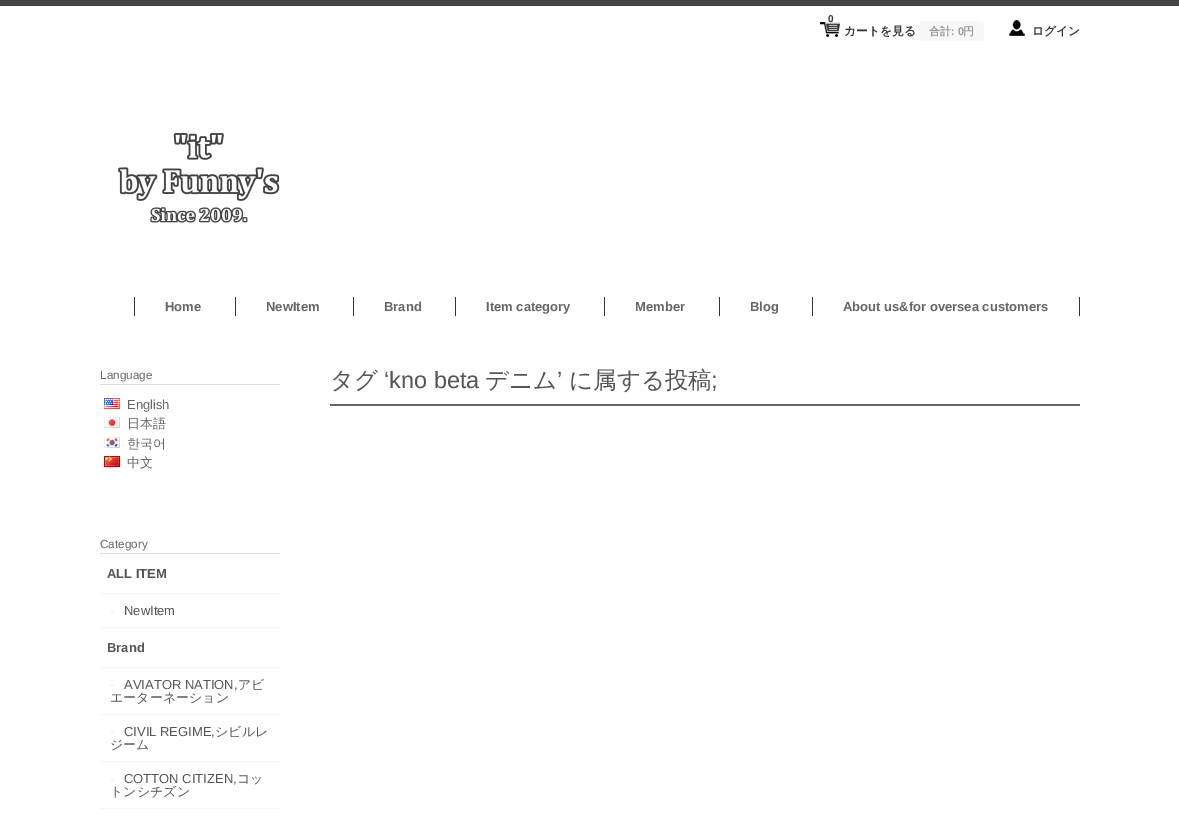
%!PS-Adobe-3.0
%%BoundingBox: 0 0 1179 818
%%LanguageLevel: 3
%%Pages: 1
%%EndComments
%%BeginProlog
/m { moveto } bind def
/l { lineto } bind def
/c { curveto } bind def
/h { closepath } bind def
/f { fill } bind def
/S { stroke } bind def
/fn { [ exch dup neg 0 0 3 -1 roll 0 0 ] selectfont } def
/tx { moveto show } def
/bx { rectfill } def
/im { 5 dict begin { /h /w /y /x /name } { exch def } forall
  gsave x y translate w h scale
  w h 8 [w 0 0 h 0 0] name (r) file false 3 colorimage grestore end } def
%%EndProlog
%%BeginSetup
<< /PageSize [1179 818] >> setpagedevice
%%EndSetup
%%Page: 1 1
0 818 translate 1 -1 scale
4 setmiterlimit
1 setgray
0 0 1179 818 bx
0.267 setgray
0 0 1179 6 bx
(image0.raw) 820 22 20 15 im
/LiberationSans-Bold 10 fn
0.2 setgray
(0) 828 22 tx
/WenQuanYiZenHei-Bold 11.75 fn
(カートを見る) 844 35 tx
0.969 setgray
923 21 m 957 21 l 957 41 l 923 41 l 921 41 919 39 919 37 c 919 25 l 919 23 921 21 923 21 c h f
/WenQuanYiZenHei-Bold 11 fn
0.6 setgray
(合計) 929 35 tx
0.969 setgray
957 21 m 980 21 l 982 21 984 23 984 25 c 984 37 l 984 39 982 41 980 41 c 957 41 l h f
/LiberationSans-Bold 11 fn
0.6 setgray
(: 0) 951 35 tx
/WenQuanYiZenHei-Bold 11 fn
(円) 963 35 tx
(image1.raw) 1009 20 16 16 im
/WenQuanYiZenHei-Bold 11.75 fn
0.2 setgray
(ログイン) 1032 35 tx
(image2.raw) 118 133 162 90 im
1079 297 1 19 bx
134 297 1 19 bx
/LiberationSans-Bold 13 fn
0.4 setgray
(Home) 165 311 tx
0.2 setgray
235 297 1 19 bx
0.4 setgray
(NewItem) 266 311 tx
0.2 setgray
353 297 1 19 bx
0.4 setgray
(Brand) 384 311 tx
0.2 setgray
455 297 1 19 bx
0.4 setgray
(Item category) 486 311 tx
0.2 setgray
604 297 1 19 bx
0.4 setgray
(Member) 635 311 tx
0.2 setgray
719 297 1 19 bx
0.4 setgray
(Blog) 750 311 tx
0.2 setgray
812 297 1 19 bx
0.4 setgray
(About us&for oversea customers) 843 311 tx
0.867 setgray
100 384 180 1 bx
/LiberationSans-Regular 11.75 fn
0.4 setgray
(Language) 100 379 tx
(image3.raw) 104 398 16 11 im
/LiberationSans-Regular 13 fn
(English) 127 409 tx
(image4.raw) 104 417 16 11 im
/WenQuanYiZenHei-Medium 13 fn
(日本語) 127 428 tx
(image5.raw) 104 437 16 11 im
(한국어) 127 448 tx
(image6.raw) 104 456 16 11 im
(中文) 127 467 tx
0.867 setgray
100 553 180 1 bx
/LiberationSans-Regular 11.75 fn
0.4 setgray
(Category) 100 548 tx
0.933 setgray
[1 1] 0 setdash
100 593.5 m 280 593.5 l S
/LiberationSans-Bold 13 fn
0.333 setgray
(ALL ITEM) 107 578 tx
0.933 setgray
100 627.5 m 280 627.5 l S
/LiberationSans-Regular 13 fn
(-) 110 615 tx
0.333 setgray
(NewItem) 124 615 tx
0.933 setgray
100 667.5 m 280 667.5 l S
/LiberationSans-Bold 13 fn
0.333 setgray
(Brand) 107 652 tx
0.933 setgray
100 714.5 m 280 714.5 l S
/LiberationSans-Regular 13 fn
(-) 110 689 tx
0.333 setgray
(AVIATOR NATION,) 124 689 tx
/WenQuanYiZenHei-Medium 13 fn
(アビ) 238 689 tx
(エーターネーション) 110 702 tx
0.933 setgray
100 761.5 m 280 761.5 l S
/LiberationSans-Regular 13 fn
(-) 110 736 tx
0.333 setgray
(CIVIL REGIME,) 124 736 tx
/WenQuanYiZenHei-Medium 13 fn
(シビルレ) 215 736 tx
(ジーム) 110 749 tx
0.933 setgray
100 808.5 m 280 808.5 l S
/LiberationSans-Regular 13 fn
(-) 110 783 tx
0.333 setgray
(COTTON CITIZEN,) 124 783 tx
/WenQuanYiZenHei-Medium 13 fn
(コッ) 237 783 tx
(トンシチズン) 110 796 tx
0.4 setgray
330 404 750 2 bx
/WenQuanYiZenHei-Medium 23.5 fn
0.333 setgray
(タグ) 330 388 tx
/LiberationSans-Regular 23.5 fn
(‘kno beta) 384 388 tx
/WenQuanYiZenHei-Medium 23.5 fn
(デニム) 485 388 tx
/LiberationSans-Regular 23.5 fn
(’) 557 388 tx
/WenQuanYiZenHei-Medium 23.5 fn
(に属する投稿) 569 388 tx
/LiberationSans-Regular 23.5 fn
(;) 711 388 tx
showpage
%%EOF
